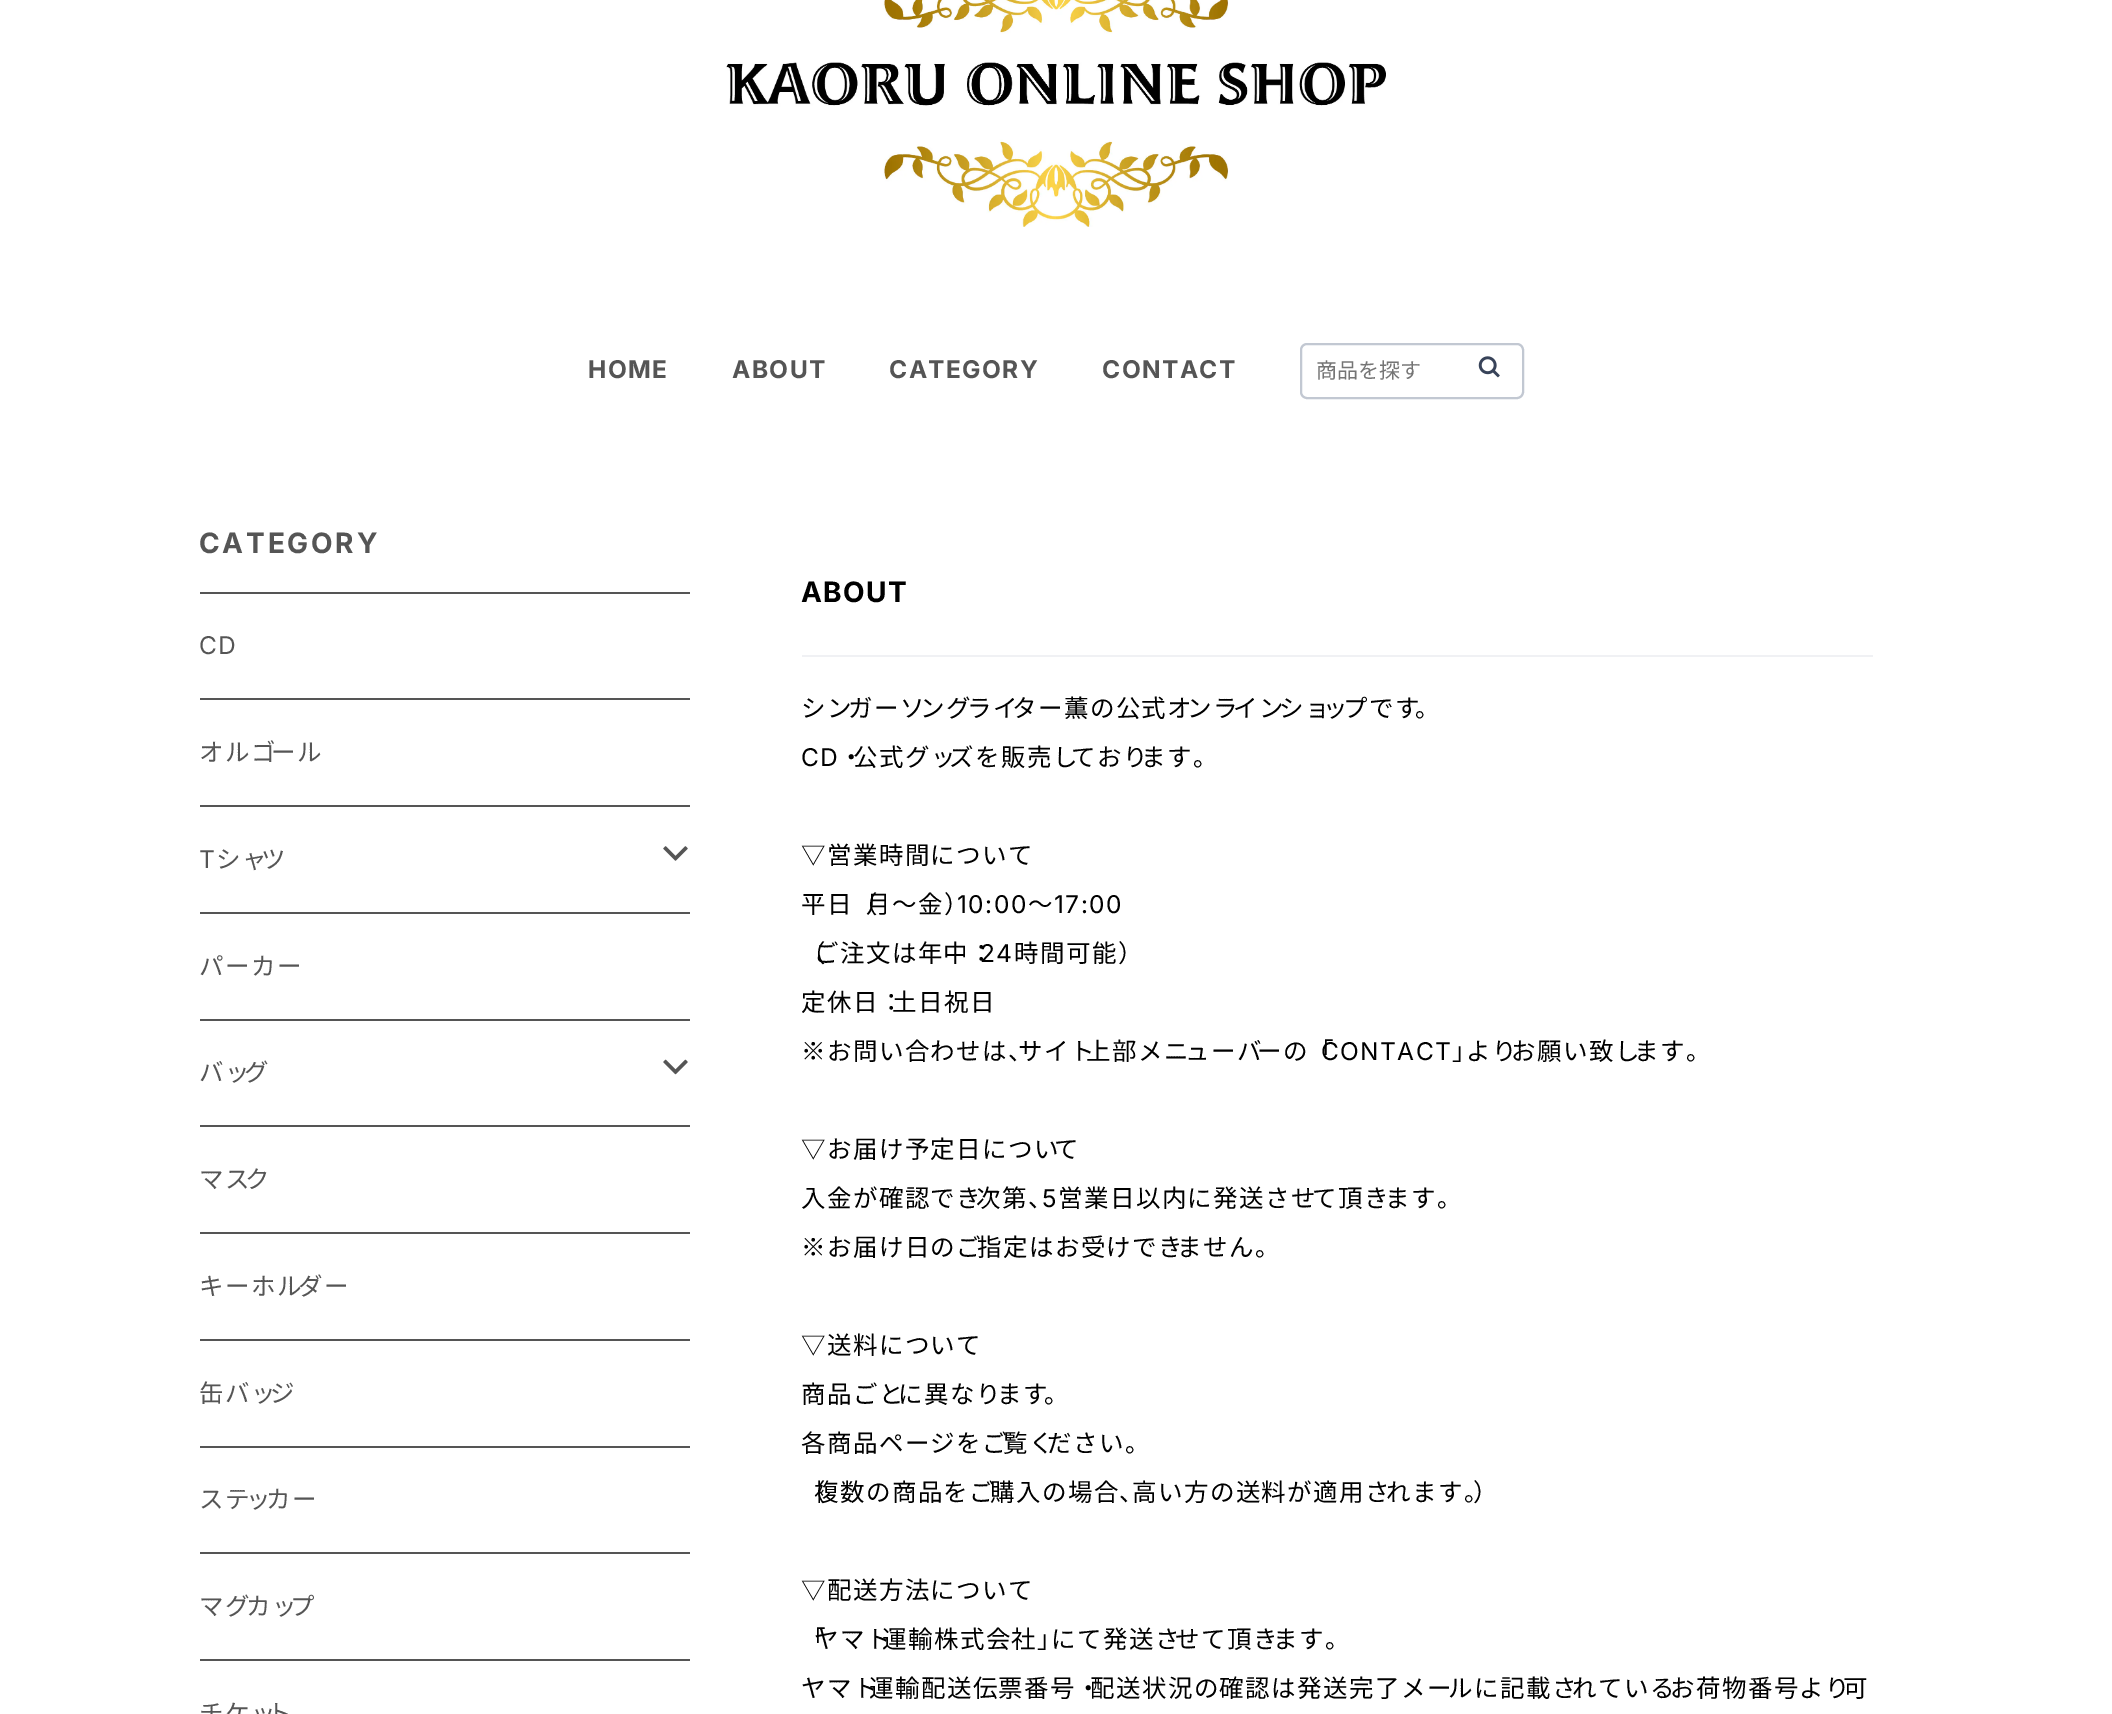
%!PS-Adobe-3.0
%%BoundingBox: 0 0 2112 1714
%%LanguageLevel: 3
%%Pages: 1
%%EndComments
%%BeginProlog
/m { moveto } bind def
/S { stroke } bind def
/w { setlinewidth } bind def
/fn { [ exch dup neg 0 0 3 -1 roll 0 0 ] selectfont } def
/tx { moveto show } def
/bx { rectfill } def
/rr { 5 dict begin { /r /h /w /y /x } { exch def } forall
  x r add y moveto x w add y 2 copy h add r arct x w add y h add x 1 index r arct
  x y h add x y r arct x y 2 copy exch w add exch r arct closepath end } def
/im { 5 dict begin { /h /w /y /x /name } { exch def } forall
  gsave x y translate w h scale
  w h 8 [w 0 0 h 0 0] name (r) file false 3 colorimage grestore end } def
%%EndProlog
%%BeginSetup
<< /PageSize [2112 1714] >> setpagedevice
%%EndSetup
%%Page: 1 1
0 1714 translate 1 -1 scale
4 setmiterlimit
1 setgray
0 0 2112 1714 bx
(image0.raw) 726 0 660 227 im
/Inter-Bold 24.5 fn
0.333 setgray
588 378 m 1.4 0 (HOME) ashow
732 378 m 1.4 0 (ABOUT) ashow
889 378 m 1.4 0 (CATEGORY) ashow
1102 378 m 1.4 0 (CONTACT) ashow
0.761 0.784 0.824 setrgbcolor
2 w
1301 344 222 54 6 rr S
/NotoSansJP-Regular 21 fn
0.459 setgray
(商品を探す) 1316 378 tx
(image1.raw) 1478 356 22 22 im
/Inter-Bold 28 fn
0.333 setgray
199 553 m 2.75 0 (CATEGORY) ashow
200 592 490 2 bx
/Inter-Regular 24.5 fn
199 654 m 1.4 0 (CD) ashow
200 698 490 2 bx
/NotoSansJP-Regular 24.5 fn
199 761 m 1.4 0 (オルゴ) ashow
271 761 m 1.4 0 (ール) ashow
200 805 490 2 bx
/Inter-Regular 24.5 fn
199 868 m 1.4 0 (T) ashow
/NotoSansJP-Regular 24.5 fn
216 868 m 1.4 0 (シャ) ashow
261 868 m 1.4 0 (ツ) ashow
(image2.raw) 663 846 25 15 im
200 912 490 2 bx
199 975 m 1.4 0 (パーカー) ashow
200 1019 490 2 bx
199 1081 m 1.4 0 (バッ) ashow
244 1081 m 1.4 0 (グ) ashow
(image3.raw) 663 1059 25 16 im
200 1125 490 2 bx
199 1188 m 1.4 0 (マス) ashow
245 1188 m 1.4 0 (ク) ashow
200 1232 490 2 bx
199 1295 m 1.4 0 (キーホル) ashow
298 1295 m 1.4 0 (ダー) ashow
200 1339 490 2 bx
199 1402 m 1.4 0 (缶バッ) ashow
270 1402 m 1.4 0 (ジ) ashow
200 1446 490 2 bx
199 1508 m 1.4 0 (ステ) ashow
246 1508 m 1.4 0 (ッ) ashow
266 1508 m 1.4 0 (カー) ashow
200 1552 490 2 bx
199 1615 m 1.4 0 (マグ) ashow
246 1615 m 1.4 0 (カッ) ashow
290 1615 m 1.4 0 (プ) ashow
200 1659 490 2 bx
199 1722 m 1.4 0 (チケッ) ashow
267 1722 m 1.4 0 (ト) ashow
0.941 0.945 0.957 setrgbcolor
802 655 1071 2 bx
/Inter-Bold 28 fn
0 setgray
801 602 m 1.4 0 (ABOUT) ashow
/NotoSansJP-Regular 24.5 fn
801 717 m 1.4 0 (シン) ashow
848 717 m 1.4 0 (ガーソ) ashow
920 717 m 1.4 0 (ング) ashow
967 717 m 1.4 0 (ライ) ashow
1012 717 m 1.4 0 (ター薫の公式オ) ashow
1187 717 m 1.4 0 (ンラ) ashow
1233 717 m 1.4 0 (イン) ashow
1279 717 m 1.4 0 (ショ) ashow
1323 717 m 1.4 0 (ッ) ashow
1343 717 m 1.4 0 (プです) ashow
1415 717 m 1.4 0 (。) ashow
/Inter-Regular 24.5 fn
801 766 m 1.4 0 (CD) ashow
/NotoSansJP-Regular 24.5 fn
839 766 m 1.4 0 (・) ashow
853 766 m 1.4 0 (公式グッ) ashow
949 766 m 1.4 0 (ズを販売し) ashow
1071 766 m 1.4 0 (ており) ashow
1141 766 m 1.4 0 (ます。) ashow
801 864 m 1.4 0 (▽営業時間について) ashow
801 913 m 1.4 0 (平日（) ashow
866 913 m 1.4 0 (月〜金）) ashow
/Inter-Regular 24.5 fn
957 913 m 1.4 0 (10:00) ashow
/NotoSansJP-Regular 24.5 fn
1028 913 m 1.4 0 (〜) ashow
/Inter-Regular 24.5 fn
1054 913 m 1.4 0 (17:00) ashow
/NotoSansJP-Regular 24.5 fn
801 962 m 1.4 0 (（) ashow
814 962 m 1.4 0 (ご注文は年中：) ashow
/Inter-Regular 24.5 fn
980 962 m 1.4 0 (24) ashow
/NotoSansJP-Regular 24.5 fn
1014 962 m 1.4 0 (時間可能）) ashow
801 1011 m 1.4 0 (定休日：) ashow
892 1011 m 1.4 0 (土日祝日) ashow
801 1060 m 1.4 0 (※お問い合わせは、) ashow
1018 1060 m 1.4 0 (サイト) ashow
1086 1060 m 1.4 0 (上部メニ) ashow
1185 1060 m 1.4 0 (ューバ) ashow
1257 1060 m 1.4 0 (ーの「) ashow
/Inter-Regular 24.5 fn
1321 1060 m 1.4 0 (CONTACT) ashow
/NotoSansJP-Regular 24.5 fn
1452 1060 m 1.4 0 (」) ashow
1466 1060 m 1.4 0 (より) ashow
1511 1060 m 1.4 0 (お願い致し) ashow
1634 1060 m 1.4 0 (ます。) ashow
801 1158 m 1.4 0 (▽お届け予定日につい) ashow
1054 1158 m 1.4 0 (て) ashow
801 1207 m 1.4 0 (入金が確認でき) ashow
976 1207 m 1.4 0 (次第、) ashow
/Inter-Regular 24.5 fn
1042 1207 m 1.4 0 (5) ashow
/NotoSansJP-Regular 24.5 fn
1058 1207 m 1.4 0 (営業日以内に発送させ) ashow
1312 1207 m 1.4 0 (て頂き) ashow
1385 1207 m 1.4 0 (ます。) ashow
801 1256 m 1.4 0 (※お届け日のご) ashow
977 1256 m 1.4 0 (指定はお受けでき) ashow
1177 1256 m 1.4 0 (ません。) ashow
801 1354 m 1.4 0 (▽送料について) ashow
801 1403 m 1.4 0 (商品ごと) ashow
898 1403 m 1.4 0 (に異なり) ashow
997 1403 m 1.4 0 (ます) ashow
1044 1403 m 1.4 0 (。) ashow
801 1452 m 1.4 0 (各商品ページをご) ashow
1003 1452 m 1.4 0 (覧く) ashow
1047 1452 m 1.4 0 (ださい。) ashow
801 1501 m 1.4 0 (（) ashow
814 1501 m 1.4 0 (複数の商品をご) ashow
990 1501 m 1.4 0 (購入の場合、) ashow
1132 1501 m 1.4 0 (高い方の送料が適用さ) ashow
1386 1501 m 1.4 0 (れます。) ashow
1473 1501 m 1.4 0 (）) ashow
801 1599 m 1.4 0 (▽配送方法について) ashow
801 1648 m 1.4 0 (「) ashow
814 1648 m 1.4 0 (ヤマト) ashow
882 1648 m 1.4 0 (運輸株式会社」) ashow
1051 1648 m 1.4 0 (にて発送さ) ashow
1175 1648 m 1.4 0 (せて頂き) ashow
1273 1648 m 1.4 0 (ます。) ashow
801 1697 m 1.4 0 (ヤマト) ashow
869 1697 m 1.4 0 (運輸配送伝票番号・) ashow
1090 1697 m 1.4 0 (配送状況の確認は発送完了メー) ashow
1448 1697 m 1.4 0 (ルに記載さ) ashow
1572 1697 m 1.4 0 (れている) ashow
1670 1697 m 1.4 0 (お荷物番号より) ashow
1843 1697 m 1.4 0 (可) ashow
showpage
%%EOF
